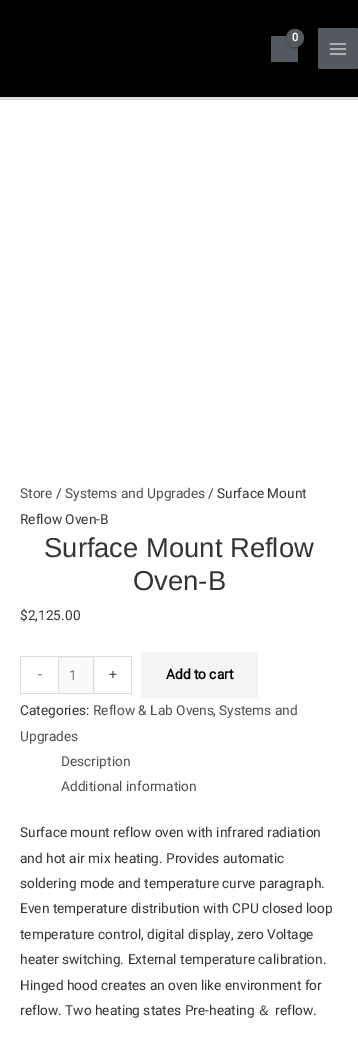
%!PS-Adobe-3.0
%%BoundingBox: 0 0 358 1053
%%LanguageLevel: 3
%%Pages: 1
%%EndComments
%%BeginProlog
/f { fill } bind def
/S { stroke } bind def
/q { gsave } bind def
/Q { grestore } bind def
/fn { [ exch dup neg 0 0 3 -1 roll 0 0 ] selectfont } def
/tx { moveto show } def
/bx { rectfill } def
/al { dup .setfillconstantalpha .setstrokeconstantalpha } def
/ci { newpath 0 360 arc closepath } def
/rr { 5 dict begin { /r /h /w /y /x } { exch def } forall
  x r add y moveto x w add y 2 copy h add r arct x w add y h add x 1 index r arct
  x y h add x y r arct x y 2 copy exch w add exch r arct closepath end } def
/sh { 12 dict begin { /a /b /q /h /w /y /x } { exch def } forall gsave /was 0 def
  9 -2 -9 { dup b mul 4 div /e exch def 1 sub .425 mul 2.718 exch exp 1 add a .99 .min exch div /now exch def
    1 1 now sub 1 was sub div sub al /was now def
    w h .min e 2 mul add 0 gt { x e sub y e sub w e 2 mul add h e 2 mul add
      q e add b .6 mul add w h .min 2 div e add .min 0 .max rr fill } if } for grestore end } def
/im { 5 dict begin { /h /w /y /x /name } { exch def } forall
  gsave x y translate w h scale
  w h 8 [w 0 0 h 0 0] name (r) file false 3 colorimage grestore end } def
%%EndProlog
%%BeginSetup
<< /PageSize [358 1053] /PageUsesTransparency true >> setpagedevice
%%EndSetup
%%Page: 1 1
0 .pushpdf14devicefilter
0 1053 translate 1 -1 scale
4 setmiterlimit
1 setgray
0 0 358 1053 bx
0 setgray
0 0 358 97 bx
0.867 setgray
0 97 358 3 bx
0.329 0.349 0.373 setrgbcolor
271 36 27 26 bx
0 setgray
287 30 18 18 9 1.5 0.3 sh
0.329 0.349 0.373 setrgbcolor
295 38 9 ci f
/Roboto-Bold 11 fn
1 setgray
(0) 292 41 tx
0.329 0.349 0.373 setrgbcolor
318 28 40 41 2 rr f
(image0.raw) 329 43 18 12 im
/Roboto-Regular 13.7 fn
0.306 setgray
(Store) 20 498 tx
0.2 setgray
(/) 56 498 tx
0.306 setgray
(Systems and Upgrades) 65 498 tx
0.2 setgray
(/ Surface Mount) 208 498 tx
(Reflow Oven-B) 20 524 tx
/LiberationSans-Regular 27.4 fn
(Surface Mount Reflow) 44 557 tx
(Oven-B) 133 590 tx
/Roboto-Regular 13.7 fn
($2,125.00) 20 620 tx
0.867 setgray
20 656 38 1 bx
20 693 38 1 bx
20 656 1 38 bx
0.294 0.31 0.345 setrgbcolor
(-) 38 679 tx
0.98 setgray
58.5 656.5 35 37 1.5 rr q f Q
0.867 setgray
S
0.4 setgray
(1) 69 680 tx
0.867 setgray
94 656 38 1 bx
131 656 1 38 bx
94 693 38 1 bx
0.294 0.31 0.345 setrgbcolor
(+) 109 679 tx
0.957 setgray
141 652 117 46 bx
/Roboto-Bold 13.7 fn
0 setgray
(Add to cart) 166 679 tx
/Roboto-Regular 13.7 fn
0.2 setgray
(Categories:) 20 715 tx
0.306 setgray
(Reflow & Lab Ovens) 93 715 tx
0.2 setgray
(,) 213 715 tx
0.306 setgray
(Systems and) 219 715 tx
(Upgrades) 20 741 tx
(Description) 61 766 tx
(Additional information) 61 791 tx
0.2 setgray
(Surface mount reflow oven with infrared radiation) 20 837 tx
(and hot air mix heating. Provides automatic) 20 863 tx
(soldering mode and temperature curve paragraph.) 20 888 tx
(Even temperature distribution with CPU closed loop) 20 913 tx
(temperature control, digital display, zero Voltage) 20 939 tx
(heater switching. External temperature calibration.) 20 964 tx
(Hinged hood creates an oven like environment for) 20 990 tx
(reflow. Two heating states Pre-heating) 20 1015 tx
/WenQuanYiZenHei-Medium 13.7 fn
(＆) 257 1015 tx
/Roboto-Regular 13.7 fn
(reflow.) 275 1015 tx
.poppdf14devicefilter showpage
%%EOF
